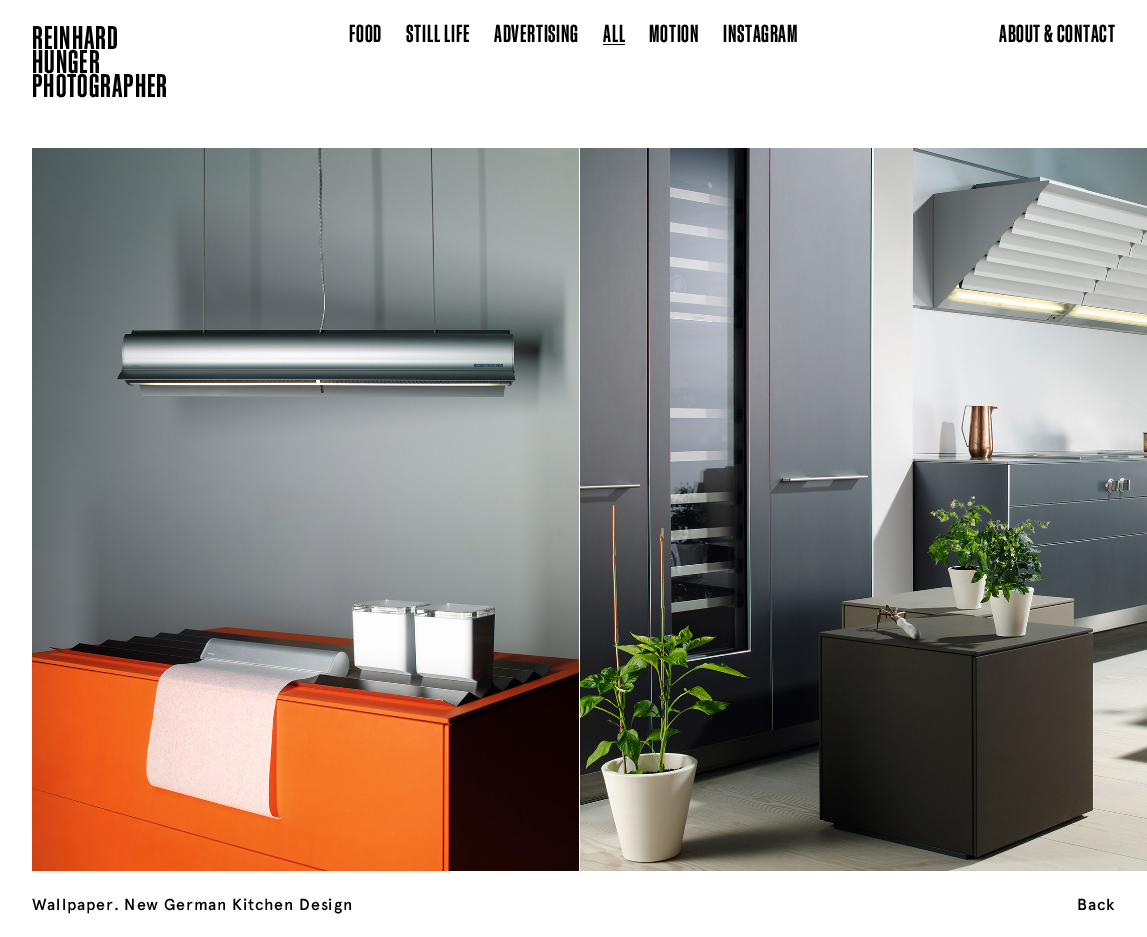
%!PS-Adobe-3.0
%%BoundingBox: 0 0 1147 937
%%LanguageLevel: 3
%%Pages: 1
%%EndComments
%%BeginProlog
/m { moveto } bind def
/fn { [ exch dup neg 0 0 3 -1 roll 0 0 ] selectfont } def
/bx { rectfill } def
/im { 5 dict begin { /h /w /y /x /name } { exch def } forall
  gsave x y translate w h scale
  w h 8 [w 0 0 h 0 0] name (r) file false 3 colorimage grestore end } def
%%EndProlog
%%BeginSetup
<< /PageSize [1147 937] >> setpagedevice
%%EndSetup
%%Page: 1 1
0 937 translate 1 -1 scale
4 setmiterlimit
1 setgray
0 0 1147 937 bx
/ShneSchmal-SemiBold 32 fn
0 setgray
32 49 m 1 0 (REINHARD) ashow
32 73 m 1 0 (HUNGER) ashow
32 97 m 1 0 (PHOTOGRAPHER) ashow
/ShneSchmal-SemiBold 24 fn
349 42 m 0.75 0 (FOOD) ashow
406 42 m 0.75 0 (STILL LIFE) ashow
494 42 m 0.75 0 (ADVERTISING) ashow
603 42 m 0.75 0 (ALL) ashow
603 44 22 1 bx
649 42 m 0.75 0 (MOTION) ashow
723 42 m 0.75 0 (INSTAGRAM) ashow
999 42 m 0.75 0 (ABOUT & CONTACT) ashow
(image0.raw) 32 148 547 723 im
(image1.raw) 580 148 567 723 im
/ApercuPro-SemiBold 16 fn
32 910 m 0.8 0 (Wallpaper. New German Kitchen Design) ashow
1077 910 m 0.8 0 (Back) ashow
showpage
%%EOF
